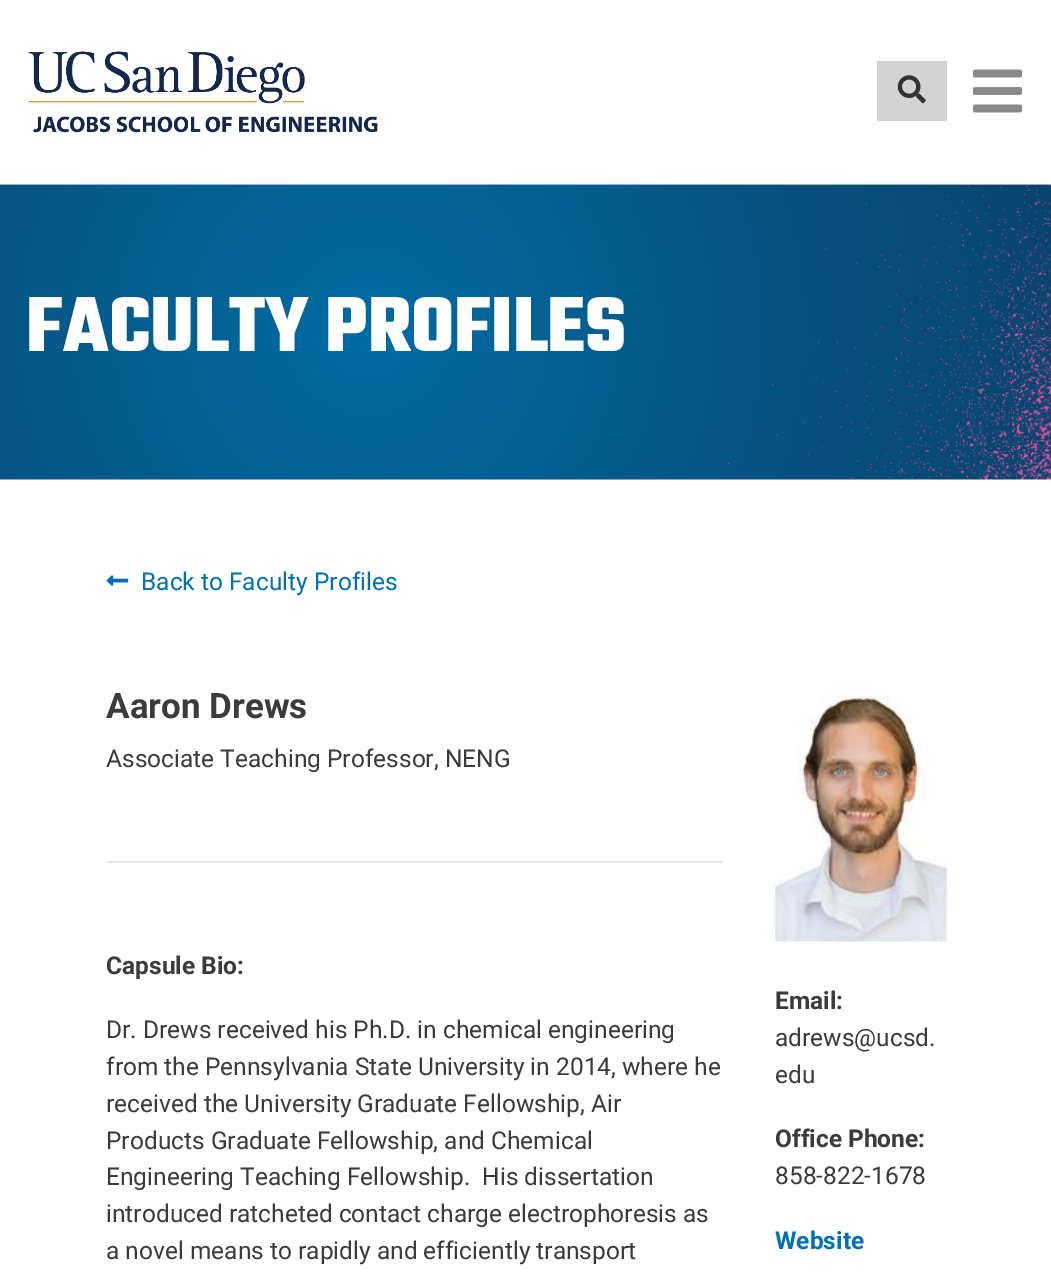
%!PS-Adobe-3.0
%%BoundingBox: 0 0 1051 1284
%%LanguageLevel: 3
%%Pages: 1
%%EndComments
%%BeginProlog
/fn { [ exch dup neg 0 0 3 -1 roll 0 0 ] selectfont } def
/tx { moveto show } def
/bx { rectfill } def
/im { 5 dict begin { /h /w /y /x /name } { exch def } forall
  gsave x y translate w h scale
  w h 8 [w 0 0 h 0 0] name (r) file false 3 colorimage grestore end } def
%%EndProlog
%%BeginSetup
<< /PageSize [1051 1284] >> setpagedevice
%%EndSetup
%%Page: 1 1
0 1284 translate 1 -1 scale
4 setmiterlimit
1 setgray
0 0 1051 1284 bx
(image0.raw) 28 51 350 82 im
0.827 setgray
877 61 70 60 bx
(image1.raw) 897 75 29 29 im
(image2.raw) 973 69 49 44 im
(image3.raw) 0 184 1051 296 im
/Teko-Bold 84 fn
1 setgray
(FACULTY PROFILES) 26 351 tx
(image4.raw) 106 575 23 11 im
/Roboto-Regular 24.5 fn
0 0.443 0.702 setrgbcolor
(Back to Faculty Profiles) 141 590 tx
/Roboto-Bold 35 fn
0.231 setgray
(Aaron Drews) 106 718 tx
/Roboto-Regular 24.5 fn
(Associate Teaching Professor, NENG) 106 767 tx
0.902 setgray
107 861 616 2 bx
/Roboto-Bold 24.5 fn
0.231 setgray
(Capsule Bio:) 106 974 tx
/Roboto-Regular 24.5 fn
(Dr. Drews received his Ph.D. in chemical engineering) 106 1038 tx
(from the Pennsylvania State University in 2014, where he) 106 1075 tx
(received the University Graduate Fellowship, Air) 106 1112 tx
(Products Graduate Fellowship, and Chemical) 106 1149 tx
(Engineering Teaching Fellowship.  His dissertation) 106 1185 tx
(introduced ratcheted contact charge electrophoresis as) 106 1222 tx
(a novel means to rapidly and efficiently transport) 106 1259 tx
(image5.raw) 775 684 172 258 im
/Roboto-Bold 24.5 fn
(Email:) 775 1009 tx
/Roboto-Regular 24.5 fn
(adrews@ucsd.) 775 1046 tx
(edu) 775 1083 tx
/Roboto-Bold 24.5 fn
(Office Phone:) 775 1147 tx
/Roboto-Regular 24.5 fn
(858-822-1678) 775 1184 tx
/Roboto-Bold 24.5 fn
0 0.443 0.702 setrgbcolor
(Website) 775 1249 tx
showpage
%%EOF
